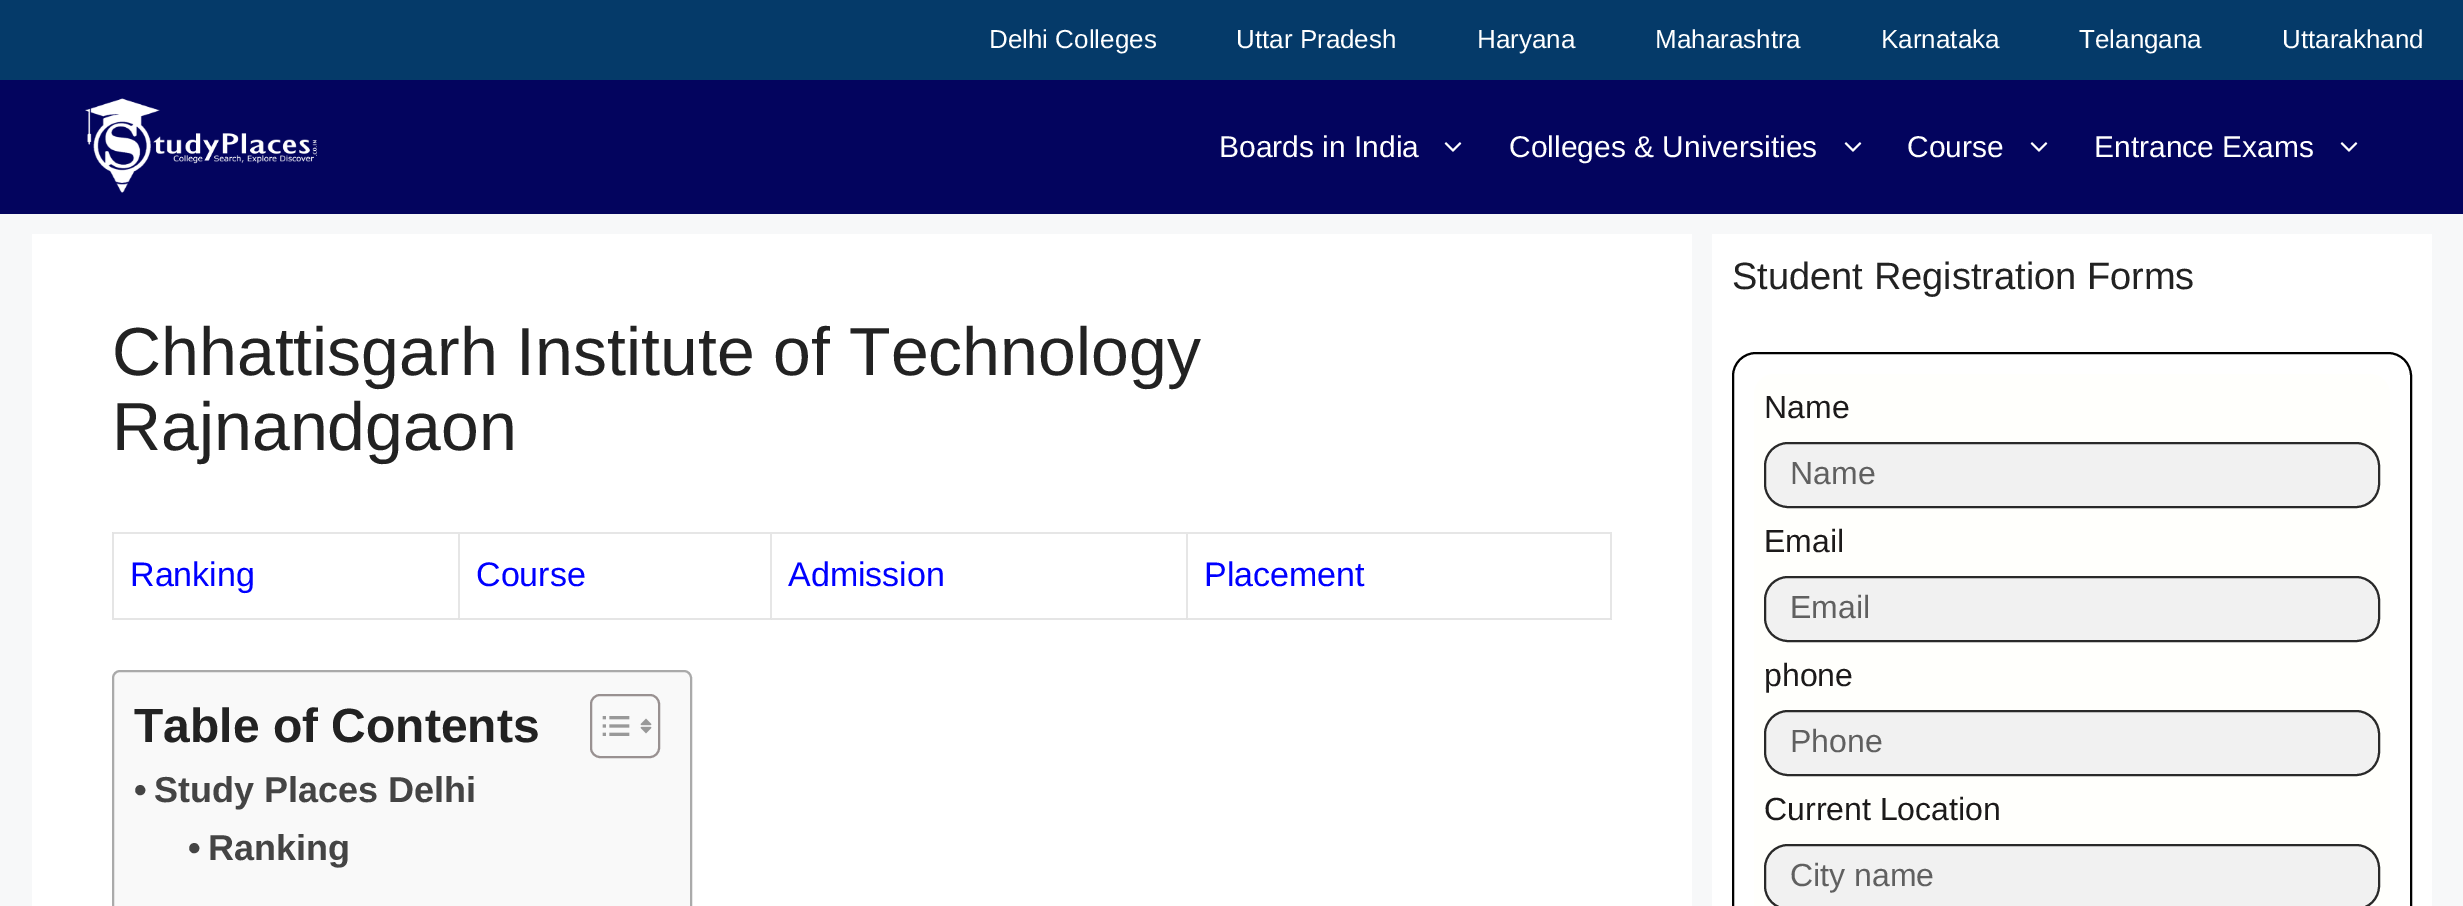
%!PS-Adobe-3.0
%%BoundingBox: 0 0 2463 906
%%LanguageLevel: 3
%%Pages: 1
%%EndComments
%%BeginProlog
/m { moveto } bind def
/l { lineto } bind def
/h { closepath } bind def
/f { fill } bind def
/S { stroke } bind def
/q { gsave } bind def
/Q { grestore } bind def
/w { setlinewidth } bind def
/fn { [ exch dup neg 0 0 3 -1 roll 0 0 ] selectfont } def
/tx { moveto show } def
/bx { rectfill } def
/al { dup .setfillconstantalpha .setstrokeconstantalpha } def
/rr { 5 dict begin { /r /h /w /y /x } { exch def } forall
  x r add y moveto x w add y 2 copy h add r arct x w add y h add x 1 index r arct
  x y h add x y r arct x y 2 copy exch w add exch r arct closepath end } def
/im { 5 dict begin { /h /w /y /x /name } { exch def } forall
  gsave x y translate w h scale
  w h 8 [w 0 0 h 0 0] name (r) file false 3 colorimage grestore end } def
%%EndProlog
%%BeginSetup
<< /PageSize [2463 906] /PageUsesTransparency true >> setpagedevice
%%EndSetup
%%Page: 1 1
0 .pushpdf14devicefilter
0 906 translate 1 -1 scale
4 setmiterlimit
0.969 0.973 0.976 setrgbcolor
0 0 2463 906 bx
0.02 0.227 0.412 setrgbcolor
0 0 2463 80 bx
/LiberationSans-Regular 26 fn
1 setgray
(Delhi Colleges) 989 48 tx
(Uttar Pradesh) 1236 48 tx
(Haryana) 1477 48 tx
(Maharashtra) 1655 48 tx
(Karnataka) 1881 48 tx
(Telangana) 2079 48 tx
(Uttarakhand) 2282 48 tx
0.012 0.016 0.369 setrgbcolor
0 80 2463 134 bx
(image0.raw) 85 98 232 95 im
/LiberationSans-Regular 30 fn
1 setgray
(Boards in India) 1219 157 tx
(image1.raw) 1444 142 18 10 im
(Colleges & Universities) 1509 157 tx
(image1.raw) 1844 142 18 10 im
(Course) 1907 157 tx
(image1.raw) 2030 142 18 10 im
(Entrance Exams) 2094 157 tx
(image1.raw) 2340 142 18 10 im
32 234 1660 672 bx
/LiberationSans-Regular 68 fn
0.133 setgray
(Chhattisgarh Institute of Technology) 112 375 tx
(Rajnandgaon) 112 450 tx
0.902 setgray
112 532 m 1612 532 l 1612 534 l 114 534 l h f
0.1 al
0 setgray
112 620 m 112 532 l 114 534 l 114 620 l h f
1 al
0.902 setgray
460 534 m 460 620 l 458 618 l 458 534 l h f
0.1 al
0 setgray
460 620 m 114 620 l 114 618 l 458 618 l h f
/LiberationSans-Regular 34 fn
1 al
0 0 1 setrgbcolor
(Ranking) 130 586 tx
0.902 setgray
772 534 m 772 620 l 770 618 l 770 534 l h f
0.1 al
0 setgray
772 620 m 460 620 l 460 618 l 770 618 l h f
1 al
0 0 1 setrgbcolor
(Course) 476 586 tx
0.902 setgray
1188 534 m 1188 620 l 1186 618 l 1186 534 l h f
0.1 al
0 setgray
1188 620 m 772 620 l 772 618 l 1186 618 l h f
1 al
0 0 1 setrgbcolor
(Admission) 788 586 tx
0.902 setgray
1612 534 m 1612 620 l 1610 618 l 1610 534 l h f
0.1 al
0 setgray
1612 620 m 1188 620 l 1188 618 l 1610 618 l h f
1 al
0 0 1 setrgbcolor
(Placement) 1204 586 tx
0.976 setgray
113 671 578 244 7 rr q f Q
0.667 setgray
2 w
S
/LiberationSans-Bold 48 fn
0.133 setgray
(Table of Contents) 134 742 tx
0.6 0.569 0.569 setrgbcolor
591 695 68 62 9 rr S
(image2.raw) 602 716 28 20 im
(image3.raw) 640 718 12 16 im
/LiberationSans-Bold 36 fn
0.267 setgray
(•) 134 802 tx
(Study Places Delhi) 154 802 tx
(•) 188 860 tx
(Ranking) 208 860 tx
1 setgray
1712 234 720 672 bx
/LiberationSans-Regular 38 fn
0.133 setgray
(Student Registration Forms) 1732 289 tx
0 setgray
1733 353 678 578 23 rr S
1 1 0.988 setrgbcolor
1754 374 636 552 20 rr f
/LiberationSans-Regular 32 fn
0.11 0.102 0.102 setrgbcolor
(Name) 1764 418 tx
0.945 setgray
1765 443 614 64 23 rr q f Q
0.161 setgray
S
0.376 setgray
(Name) 1790 484 tx
0.11 0.102 0.102 setrgbcolor
(Email) 1764 552 tx
0.945 setgray
1765 577 614 64 23 rr q f Q
0.161 setgray
S
0.376 setgray
(Email) 1790 618 tx
0.11 0.102 0.102 setrgbcolor
(phone) 1764 686 tx
0.945 setgray
1765 711 614 64 23 rr q f Q
0.161 setgray
S
0.376 setgray
(Phone) 1790 752 tx
0.11 0.102 0.102 setrgbcolor
(Current Location) 1764 820 tx
0.945 setgray
1765 845 614 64 23 rr q f Q
0.161 setgray
S
0.376 setgray
(City name) 1790 886 tx
.poppdf14devicefilter showpage
%%EOF
